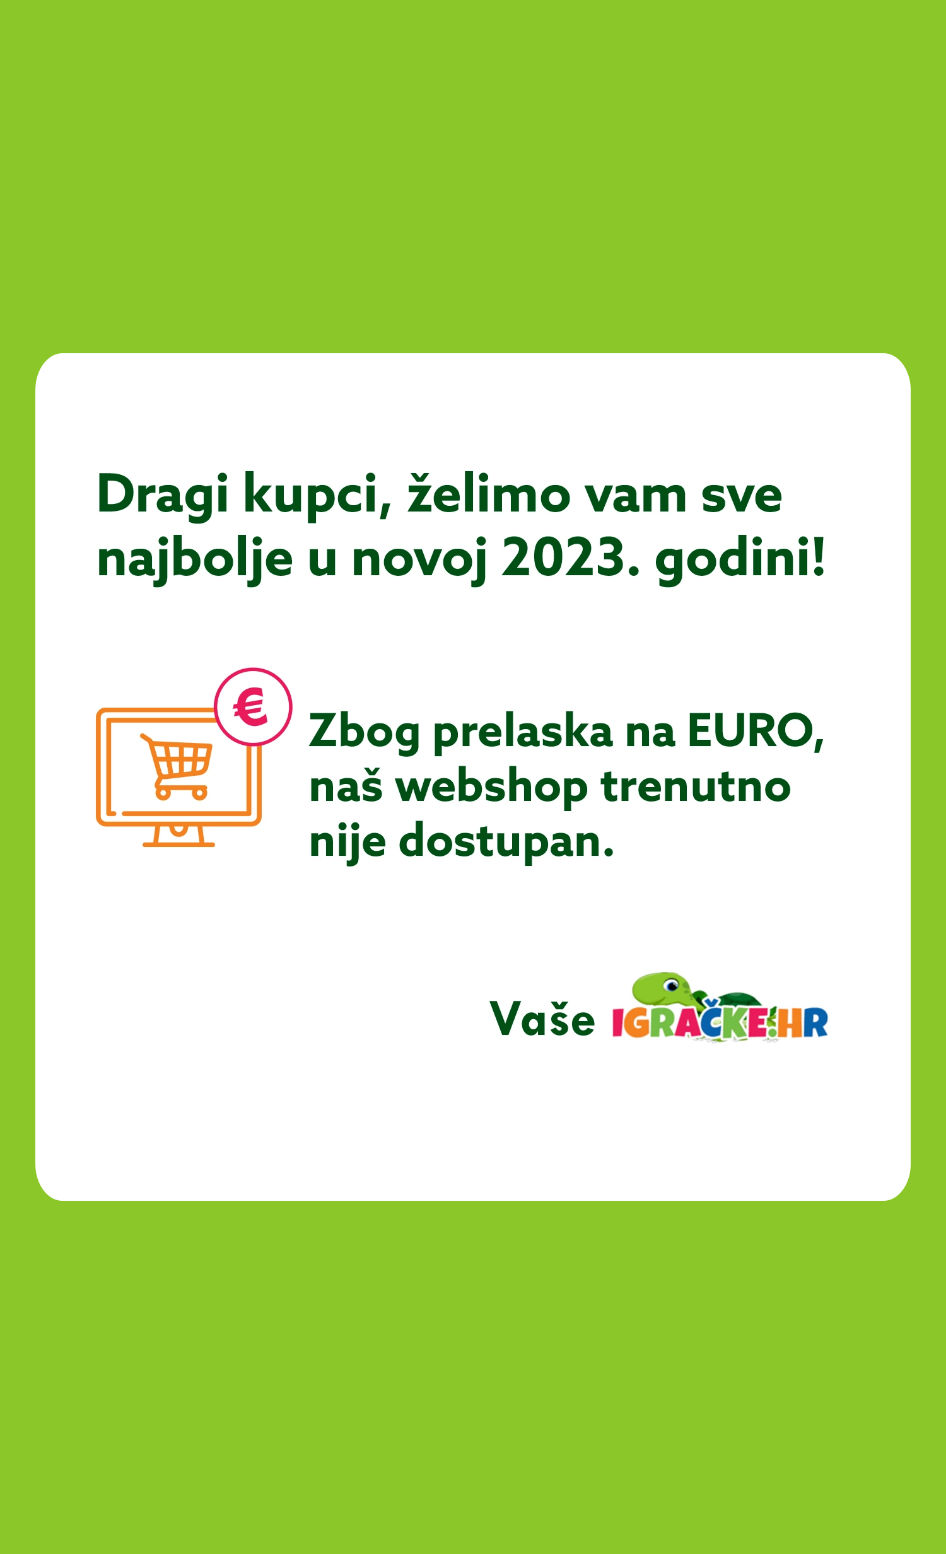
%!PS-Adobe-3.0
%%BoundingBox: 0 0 946 1554
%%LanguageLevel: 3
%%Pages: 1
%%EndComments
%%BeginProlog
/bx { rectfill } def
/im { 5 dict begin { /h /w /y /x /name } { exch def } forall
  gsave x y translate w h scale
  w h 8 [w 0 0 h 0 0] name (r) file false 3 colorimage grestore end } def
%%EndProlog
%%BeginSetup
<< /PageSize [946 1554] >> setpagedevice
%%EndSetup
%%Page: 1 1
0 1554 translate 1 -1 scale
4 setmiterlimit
0.545 0.78 0.161 setrgbcolor
0 0 946 1554 bx
(image0.raw) 35 353 876 848 im
showpage
%%EOF
